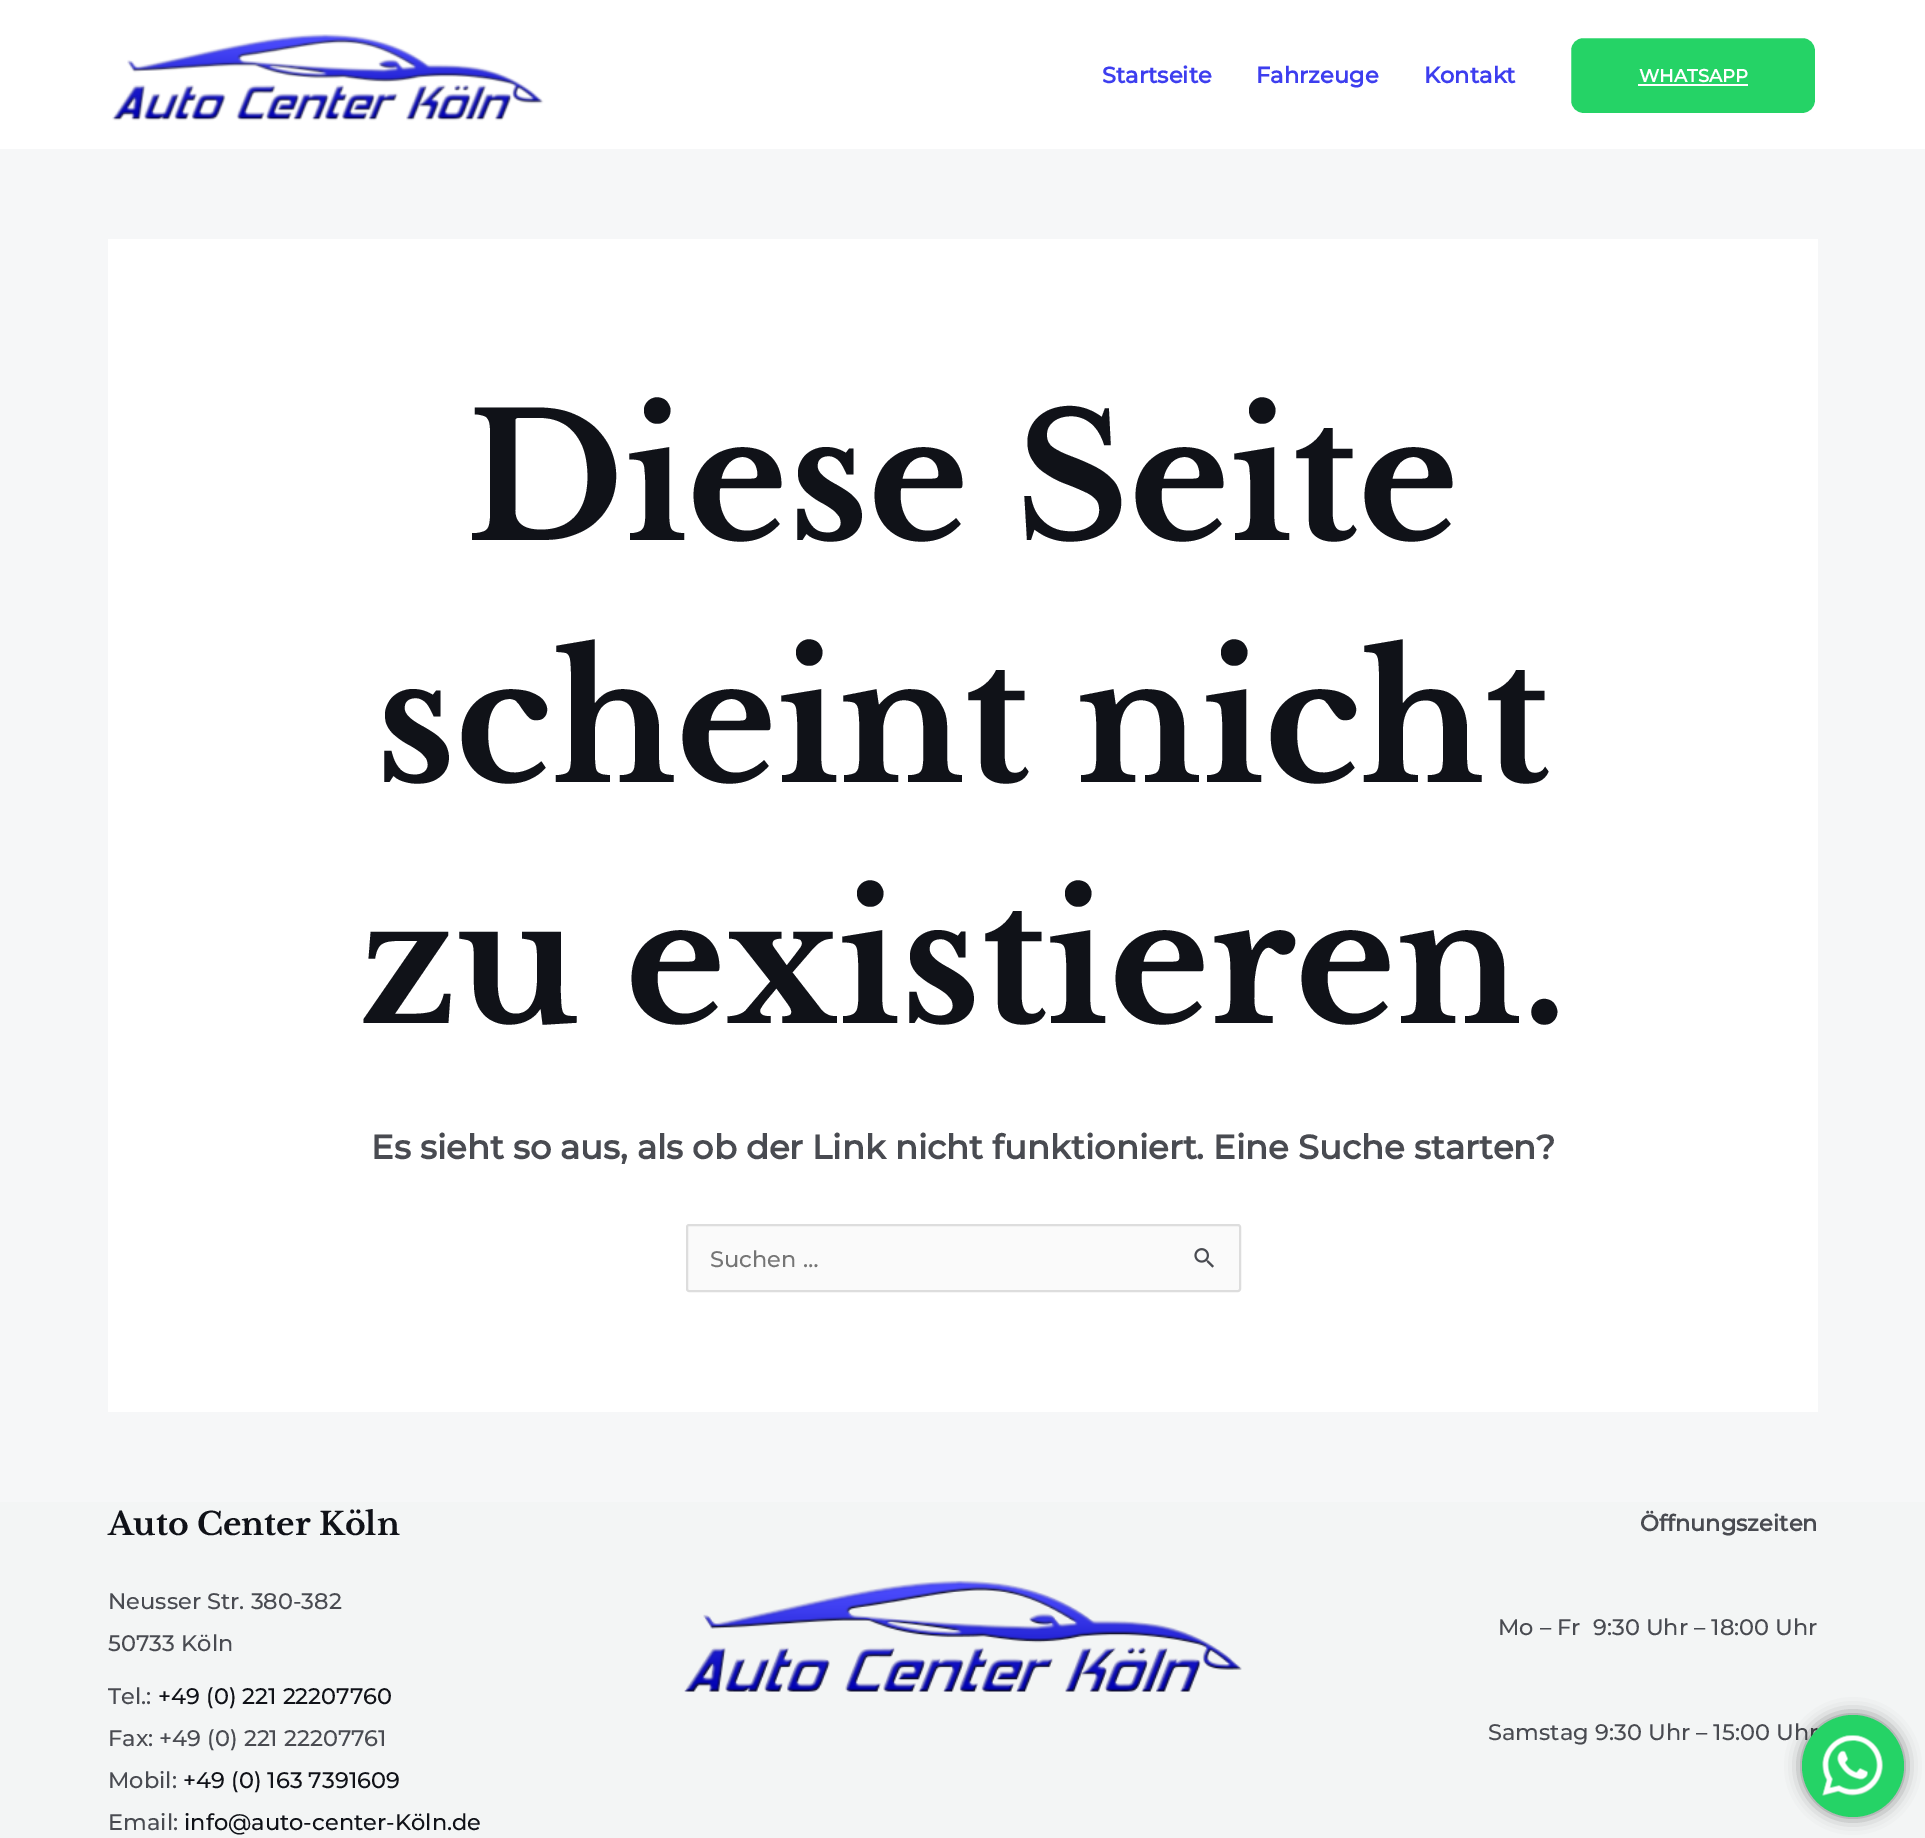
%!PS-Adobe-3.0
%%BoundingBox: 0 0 1925 1838
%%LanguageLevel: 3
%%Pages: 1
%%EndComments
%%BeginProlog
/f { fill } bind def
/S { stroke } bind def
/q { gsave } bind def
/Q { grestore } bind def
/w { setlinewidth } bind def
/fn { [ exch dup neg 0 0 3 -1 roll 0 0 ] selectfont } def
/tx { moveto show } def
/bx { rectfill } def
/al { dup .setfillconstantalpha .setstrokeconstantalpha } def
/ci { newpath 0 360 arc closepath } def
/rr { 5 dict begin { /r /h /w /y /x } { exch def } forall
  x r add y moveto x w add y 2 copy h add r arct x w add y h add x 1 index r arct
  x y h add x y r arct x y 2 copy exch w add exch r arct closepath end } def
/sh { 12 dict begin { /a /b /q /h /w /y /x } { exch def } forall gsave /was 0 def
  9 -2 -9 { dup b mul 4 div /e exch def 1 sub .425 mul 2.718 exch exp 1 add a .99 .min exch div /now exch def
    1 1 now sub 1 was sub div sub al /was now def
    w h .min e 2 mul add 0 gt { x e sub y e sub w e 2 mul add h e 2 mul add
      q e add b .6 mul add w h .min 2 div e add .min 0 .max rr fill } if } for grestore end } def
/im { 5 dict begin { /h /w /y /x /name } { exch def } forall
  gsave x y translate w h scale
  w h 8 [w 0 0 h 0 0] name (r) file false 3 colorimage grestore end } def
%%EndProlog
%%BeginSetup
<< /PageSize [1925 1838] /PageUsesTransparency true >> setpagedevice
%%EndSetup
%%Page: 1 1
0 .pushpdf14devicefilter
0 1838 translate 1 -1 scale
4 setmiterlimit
0.965 0.969 0.973 setrgbcolor
0 0 1925 1838 bx
1 setgray
0 0 1925 149 bx
(image0.raw) 112 34 432 87 im
/Montserrat-Bold 22.5 fn
0.239 0.243 0.937 setrgbcolor
(Startseite) 1102 83 tx
(Fahrzeuge) 1256 83 tx
(Kontakt) 1424 83 tx
0.145 0.827 0.4 setrgbcolor
1569.5 36.5 247 78 13.5 rr q f Q
1 setgray
3 w
S
/Montserrat-Bold 18 fn
(WHATSAPP) 1639 82 tx
1638 84 110 2 bx
108 239 1710 1173 bx
/LibreBaskerville-Bold 172.5 fn
0.063 0.071 0.094 setrgbcolor
(Diese Seite) 466 540 tx
(scheint nicht) 375 782 tx
(zu existieren.) 359 1023 tx
/Montserrat-Bold 33.75 fn
0.286 0.294 0.318 setrgbcolor
(Es sieht so aus, als ob der Link nicht funktioniert. Eine Suche starten?) 371 1159 tx
0.98 setgray
687 1225 553 66 2 rr q f Q
0.867 setgray
2 w
S
/Montserrat-Thin 22.5 fn
0.459 setgray
(Suchen …) 710 1267 tx
(image1.raw) 1194 1248 20 20 im
0.953 0.961 0.961 setrgbcolor
0 1502 1925 336 bx
/LibreBaskerville-Bold 31.5 fn
0.063 0.071 0.094 setrgbcolor
(Auto Center Köln) 108 1535 tx
/Montserrat-Thin 22.5 fn
0.286 0.294 0.318 setrgbcolor
(Neusser Str. 380-382) 108 1609 tx
(50733 Köln) 108 1651 tx
(Tel.:) 108 1704 tx
0.063 0.071 0.094 setrgbcolor
(+49 \(0\) 221 22207760) 158 1704 tx
0.286 0.294 0.318 setrgbcolor
(Fax: +49 \(0\) 221 22207761) 108 1746 tx
(Mobil:) 108 1788 tx
0.063 0.071 0.094 setrgbcolor
(+49 \(0\) 163 7391609) 183 1788 tx
0.286 0.294 0.318 setrgbcolor
(Email:) 108 1830 tx
0.063 0.071 0.094 setrgbcolor
(info@auto-center-Köln.de) 184 1830 tx
(image2.raw) 684 1580 558 112 im
/Montserrat-Bold 22.5 fn
0.286 0.294 0.318 setrgbcolor
(Öffnungszeiten) 1640 1531 tx
/Montserrat-Thin 22.5 fn
(Mo – Fr  9:30 Uhr – 18:00 Uhr) 1498 1635 tx
(Samstag 9:30 Uhr – 15:00 Uhr) 1488 1740 tx
0 setgray
1802 1715 102 102 51 8 0.5 sh
0.145 0.827 0.4 setrgbcolor
1853 1766 51 ci f
(image3.raw) 1822 1735 61 61 im
.poppdf14devicefilter showpage
%%EOF
